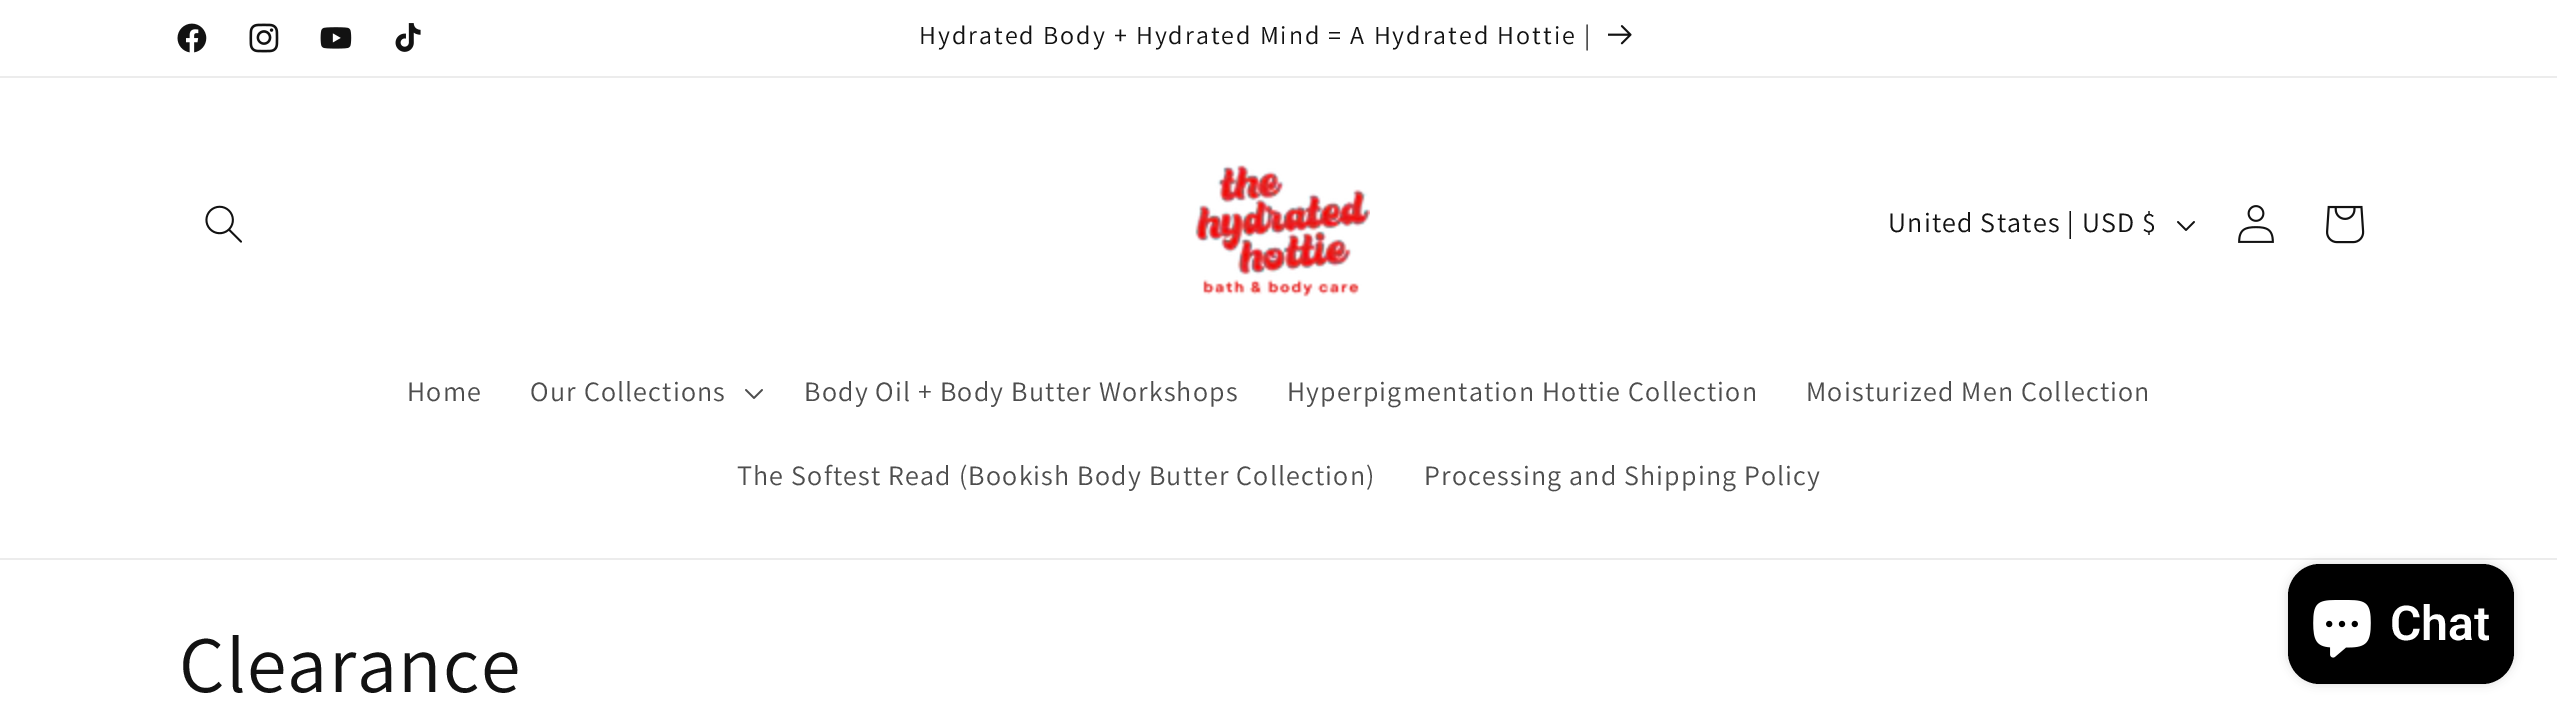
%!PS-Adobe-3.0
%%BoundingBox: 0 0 2557 726
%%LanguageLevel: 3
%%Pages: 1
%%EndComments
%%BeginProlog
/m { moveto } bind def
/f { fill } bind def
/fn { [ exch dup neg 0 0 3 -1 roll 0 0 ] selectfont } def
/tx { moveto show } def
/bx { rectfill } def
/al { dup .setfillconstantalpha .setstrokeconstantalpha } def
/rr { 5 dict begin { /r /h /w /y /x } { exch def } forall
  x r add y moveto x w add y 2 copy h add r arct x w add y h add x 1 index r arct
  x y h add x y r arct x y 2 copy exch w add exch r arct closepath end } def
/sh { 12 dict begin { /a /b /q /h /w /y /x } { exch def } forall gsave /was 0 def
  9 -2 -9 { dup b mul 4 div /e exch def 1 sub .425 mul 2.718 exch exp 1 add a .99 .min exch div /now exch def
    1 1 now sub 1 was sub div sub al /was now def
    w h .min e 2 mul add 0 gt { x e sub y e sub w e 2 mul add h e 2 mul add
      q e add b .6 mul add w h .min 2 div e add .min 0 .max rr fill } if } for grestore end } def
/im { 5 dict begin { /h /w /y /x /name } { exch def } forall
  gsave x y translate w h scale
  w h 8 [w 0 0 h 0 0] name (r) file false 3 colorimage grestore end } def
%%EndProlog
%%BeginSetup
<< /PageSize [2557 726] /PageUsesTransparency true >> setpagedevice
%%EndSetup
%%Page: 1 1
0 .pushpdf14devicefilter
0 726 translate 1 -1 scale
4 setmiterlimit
1 setgray
0 0 2557 726 bx
0.925 setgray
0 76 2557 2 bx
(image0.raw) 177 23 30 30 im
(image1.raw) 249 23 30 30 im
(image2.raw) 320 27 32 22 im
(image3.raw) 395 23 26 29 im
/Assistant-Regular 26 fn
0.071 setgray
919 44 m 2 0 (Hydrated Body + Hydrated Mind = A Hydrated Hottie |) ashow
(image4.raw) 1608 25 24 20 im
0.925 setgray
0 558 2557 2 bx
(image5.raw) 205 205 37 38 im
(image6.raw) 1195 164 175 133 im
/Assistant-Regular 28 fn
0.071 setgray
1888 232 m 1.2 0 (United States | USD $) ashow
(image7.raw) 2177 221 18 10 im
(image8.raw) 2238 205 36 38 im
(image9.raw) 2326 205 39 39 im
0.302 setgray
407 401 m 1.2 0 (Home) ashow
530 401 m 1.2 0 (Our Collections) ashow
(image10.raw) 745 389 18 10 im
804 401 m 1.2 0 (Body Oil + Body Butter Workshops) ashow
1287 401 m 1.2 0 (Hyperpigmentation Hottie Collection) ashow
1806 401 m 1.2 0 (Moisturized Men Collection) ashow
737 485 m 1.2 0 (The Softest Read \(Bookish Body Butter Collection\)) ashow
1424 485 m 1.2 0 (Processing and Shipping Policy) ashow
0 setgray
2288 564 226 120 32 5 0.15 sh
2288 564 226 120 32 rr f
(image11.raw) 2313 600 58 58 im
/Roboto-SemiBold 48 fn
1 setgray
(Chat) 2390 640 tx
/Assistant-Regular 80 fn
0.071 setgray
179 692 m 1.2 0 (Clearance) ashow
.poppdf14devicefilter showpage
%%EOF
